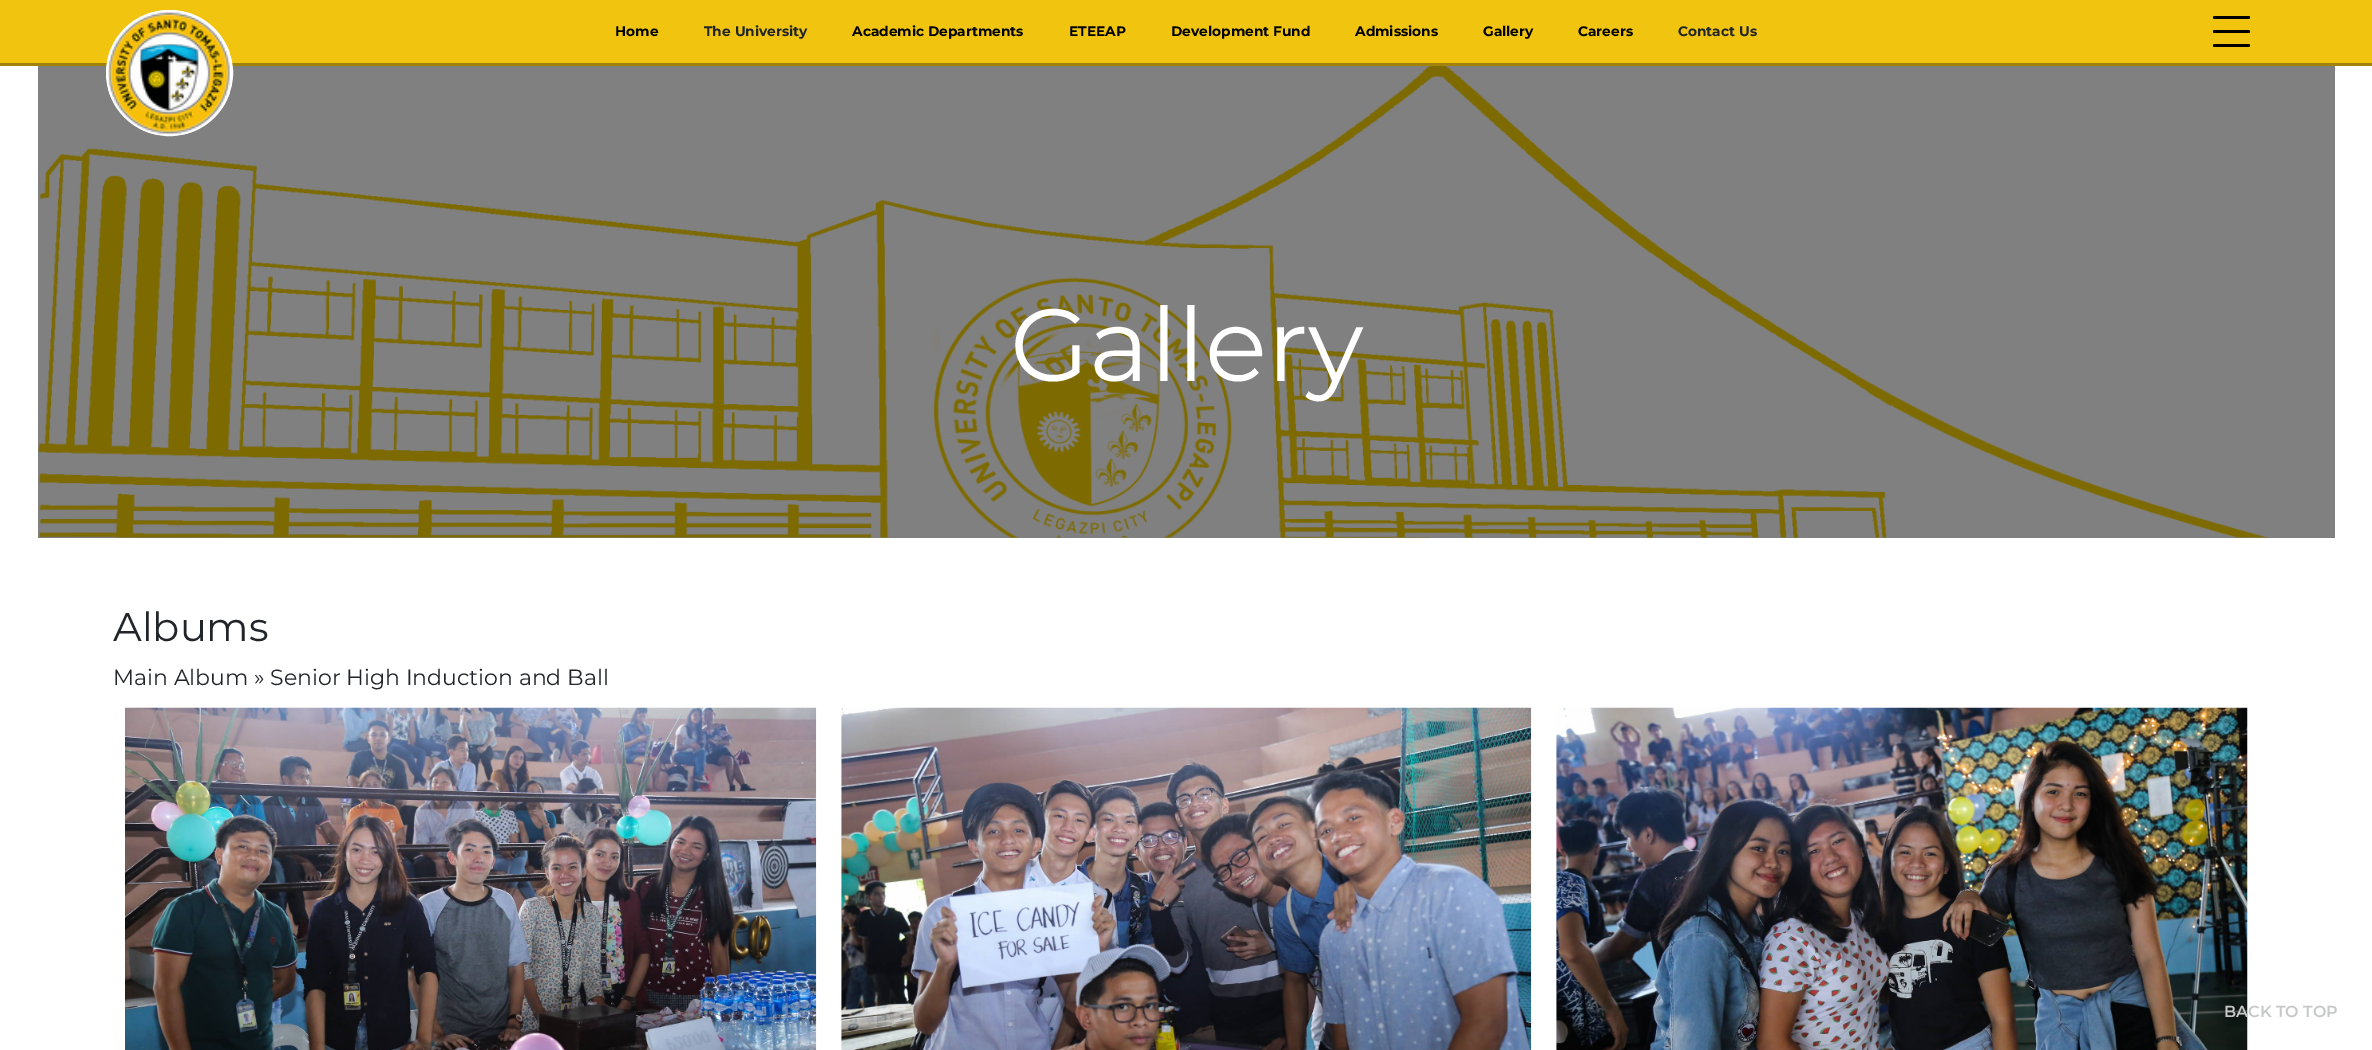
%!PS-Adobe-3.0
%%BoundingBox: 0 0 2372 1050
%%LanguageLevel: 3
%%Pages: 1
%%EndComments
%%BeginProlog
/f { fill } bind def
/S { stroke } bind def
/q { gsave } bind def
/Q { grestore } bind def
/fn { [ exch dup neg 0 0 3 -1 roll 0 0 ] selectfont } def
/tx { moveto show } def
/bx { rectfill } def
/rr { 5 dict begin { /r /h /w /y /x } { exch def } forall
  x r add y moveto x w add y 2 copy h add r arct x w add y h add x 1 index r arct
  x y h add x y r arct x y 2 copy exch w add exch r arct closepath end } def
/im { 5 dict begin { /h /w /y /x /name } { exch def } forall
  gsave x y translate w h scale
  w h 8 [w 0 0 h 0 0] name (r) file false 3 colorimage grestore end } def
%%EndProlog
%%BeginSetup
<< /PageSize [2372 1050] >> setpagedevice
%%EndSetup
%%Page: 1 1
0 1050 translate 1 -1 scale
4 setmiterlimit
1 setgray
0 0 2372 1050 bx
0.502 setgray
38 66 2297 472 bx
0.945 0.769 0.059 setrgbcolor
0 0 2372 63 bx
0.631 0.514 0.039 setrgbcolor
0 63 2372 3 bx
(image1.raw) 38 66 2231 472 im
1 setgray
106.5 10.5 126 125 62.5 rr q f Q
S
(image0.raw) 108 12 122 123 im
/Montserrat-Bold 13.75 fn
0 setgray
(Home) 615 36 tx
0.129 0.145 0.161 setrgbcolor
(The University) 704 36 tx
0 setgray
(Academic Departments) 852 36 tx
(ETEEAP) 1069 36 tx
(Development Fund) 1171 36 tx
(Admissions) 1355 36 tx
(Gallery) 1483 36 tx
(Careers) 1578 36 tx
0.129 0.145 0.161 setrgbcolor
(Contact Us) 1678 36 tx
0 setgray
2213 16 37 3 1.5 rr f
2213 30 37 3 1.5 rr f
2213 44 37 3 1.5 rr f
/Montserrat-Regular 102.5 fn
1 setgray
(Gallery) 1010 381 tx
/Montserrat-Regular 40 fn
0.129 0.145 0.161 setrgbcolor
(Albums) 113 641 tx
/Montserrat-Regular 22 fn
(Main Album » Senior High Induction and Ball) 113 685 tx
(image2.raw) 125 707 692 343 im
(image3.raw) 841 707 691 343 im
(image4.raw) 1556 707 692 343 im
/Montserrat-SemiBold 16 fn
0.776 0.784 0.784 setrgbcolor
(BACK TO TOP) 2224 1017 tx
showpage
%%EOF
